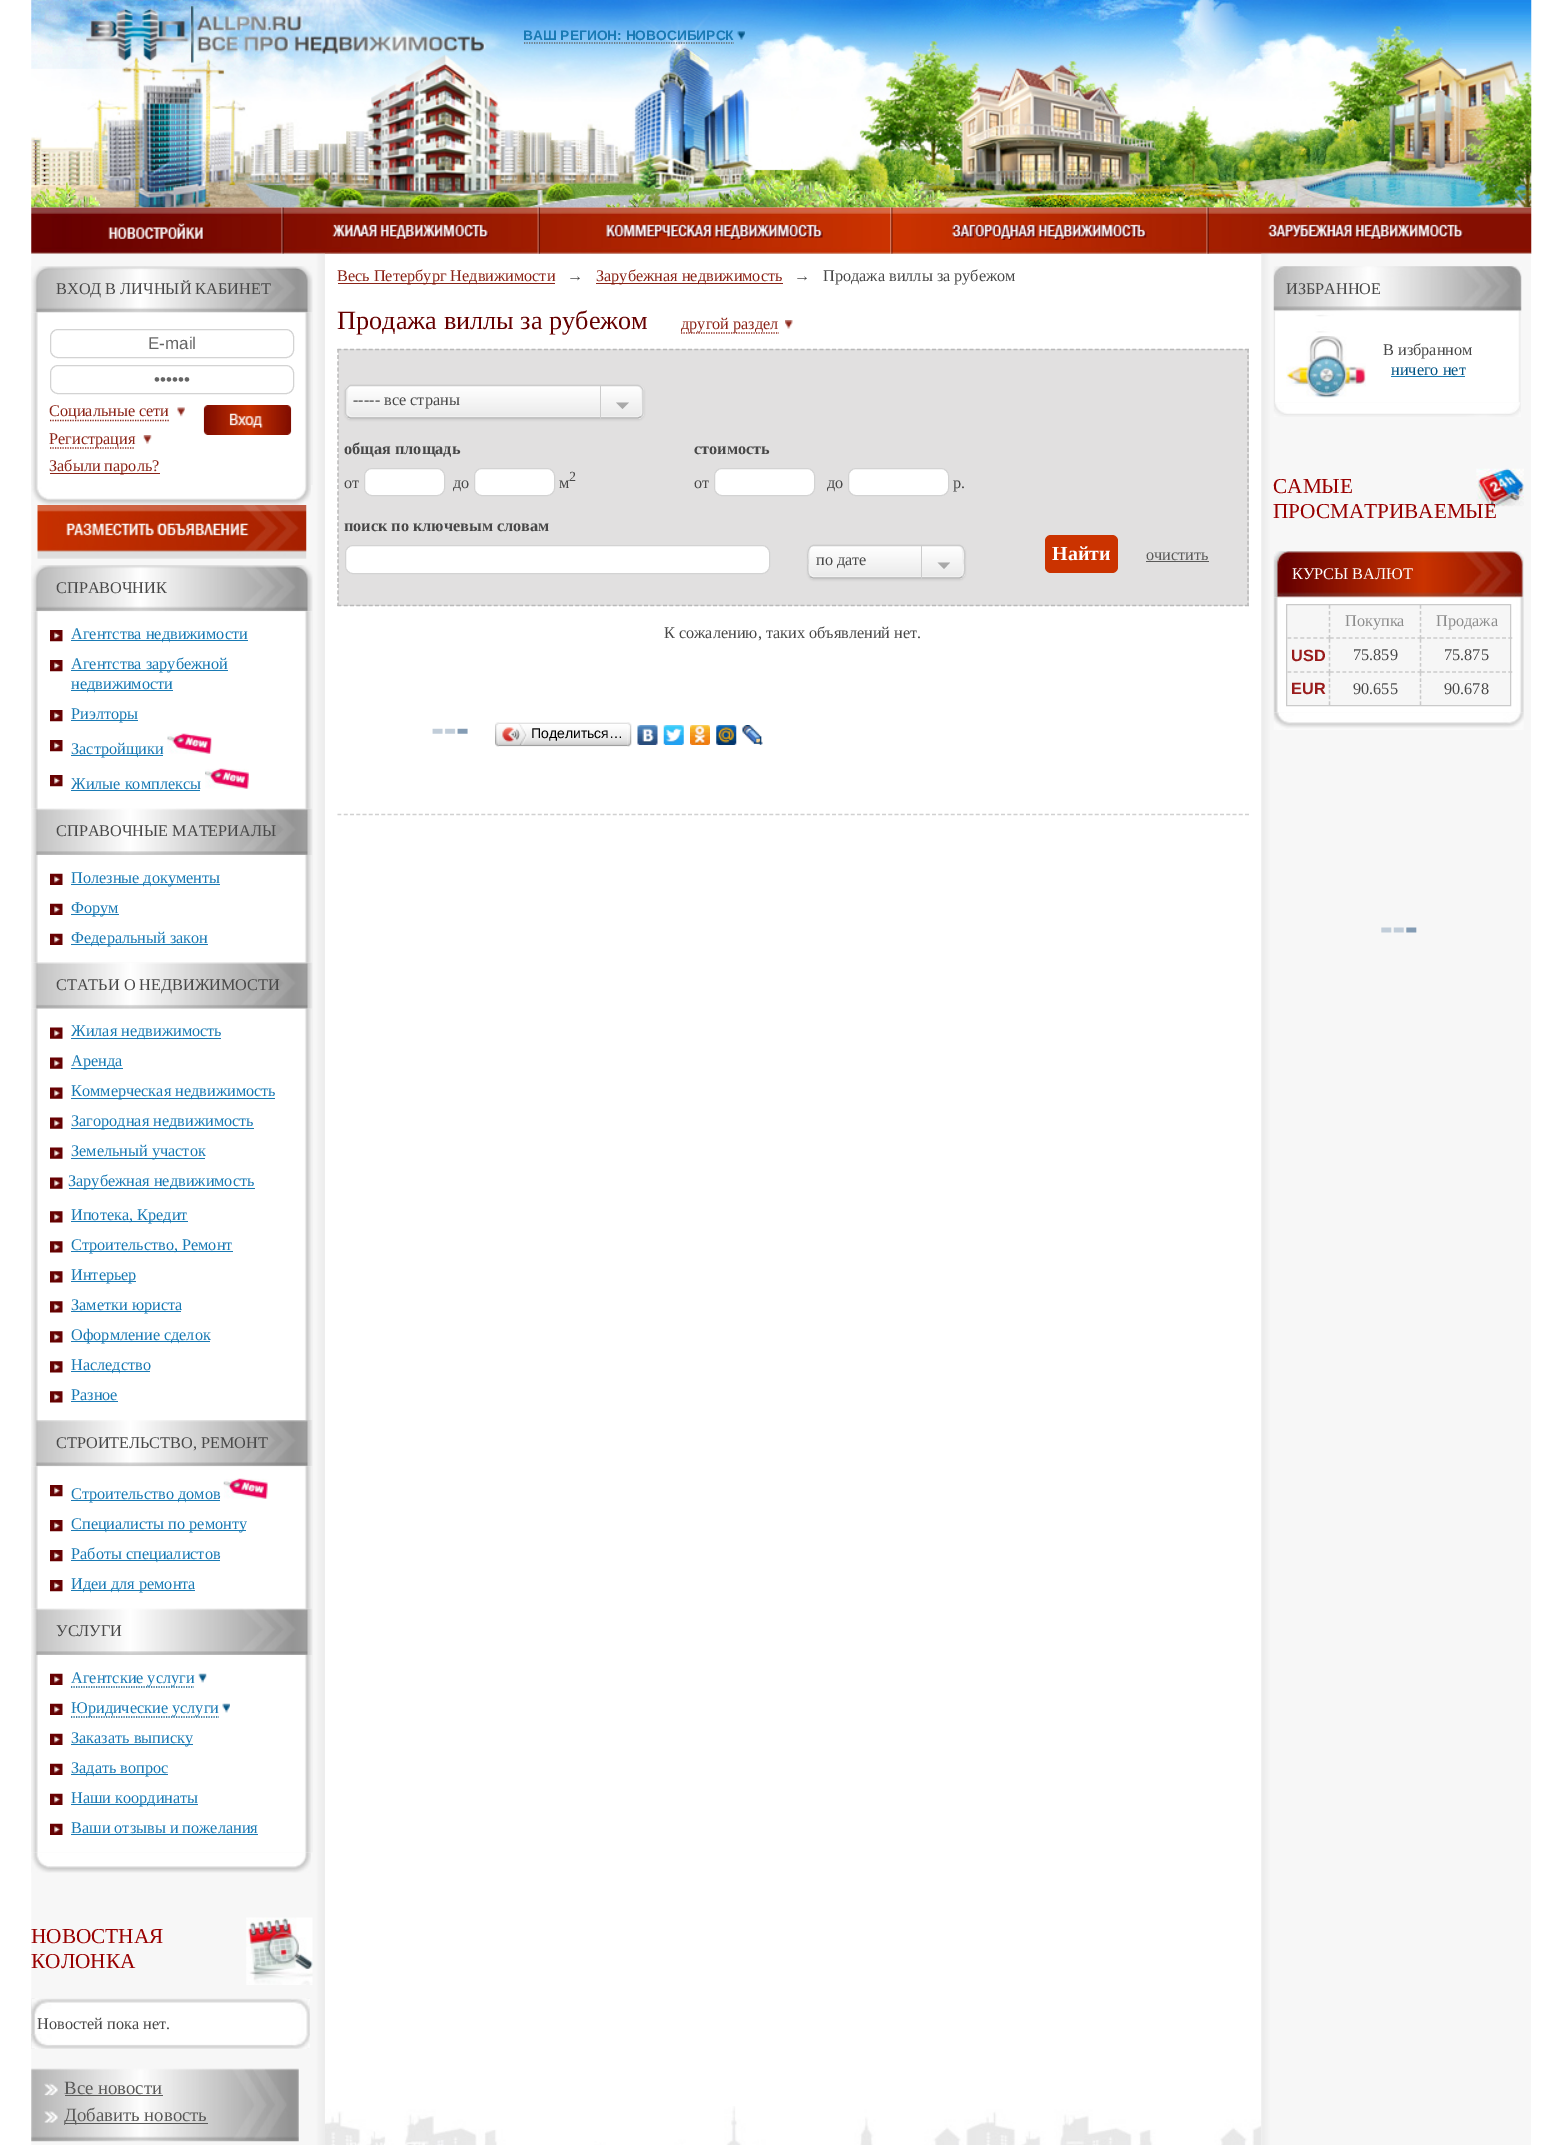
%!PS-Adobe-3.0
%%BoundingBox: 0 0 1561 2145
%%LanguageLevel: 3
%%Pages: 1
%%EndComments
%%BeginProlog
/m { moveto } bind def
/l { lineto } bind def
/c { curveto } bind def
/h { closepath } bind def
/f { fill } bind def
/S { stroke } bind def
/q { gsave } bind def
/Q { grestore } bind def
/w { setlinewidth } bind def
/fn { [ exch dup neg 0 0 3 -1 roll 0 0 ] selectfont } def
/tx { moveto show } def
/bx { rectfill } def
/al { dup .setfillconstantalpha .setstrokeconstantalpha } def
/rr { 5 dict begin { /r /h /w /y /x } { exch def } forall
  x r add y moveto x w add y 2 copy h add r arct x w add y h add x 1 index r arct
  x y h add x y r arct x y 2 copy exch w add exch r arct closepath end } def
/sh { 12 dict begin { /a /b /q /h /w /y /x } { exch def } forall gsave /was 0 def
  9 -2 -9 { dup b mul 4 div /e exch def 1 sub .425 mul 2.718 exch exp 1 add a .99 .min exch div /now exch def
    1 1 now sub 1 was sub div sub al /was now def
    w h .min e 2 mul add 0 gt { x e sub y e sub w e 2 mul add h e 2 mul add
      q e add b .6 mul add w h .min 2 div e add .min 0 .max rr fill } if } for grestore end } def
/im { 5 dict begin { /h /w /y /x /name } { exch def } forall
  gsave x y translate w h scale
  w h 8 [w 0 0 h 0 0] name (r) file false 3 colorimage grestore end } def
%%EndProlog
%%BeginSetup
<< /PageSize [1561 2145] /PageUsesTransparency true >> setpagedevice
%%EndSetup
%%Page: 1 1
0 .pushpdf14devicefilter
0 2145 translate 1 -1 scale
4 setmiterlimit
1 setgray
0 0 1561 2145 bx
(image0.raw) 31 0 1501 208 im
(image1.raw) 85 6 402 59 im
/LiberationSans-Bold 13.75 fn
0.098 0.478 0.706 setrgbcolor
(ВАШ РЕГИОН: НОВОСИБИРСК) 523 40 tx
0.376 0.384 0.384 setrgbcolor
1.2 w
[1.25 1.25] 0 setdash
524 43 m 626 43 l S
626 43 m 734 43 l S
(image2.raw) 737 31 8 9 im
(image3.raw) 31 207 1501 47 im
(image4.raw) 108 223 96 17 im
(image13.raw) 31 253 294 1892 im
(image5.raw) 281 207 3 47 im
(image6.raw) 332 224 157 16 im
(image7.raw) 537 207 3 47 im
(image8.raw) 606 224 217 16 im
(image9.raw) 890 207 3 47 im
(image10.raw) 952 224 195 16 im
(image11.raw) 1206 207 3 47 im
(image12.raw) 1268 224 196 16 im
(image14.raw) 31 266 282 47 im
/LiberationSerif-Regular 16.25 fn
0.282 setgray
(ВХОД В ЛИЧНЫЙ КАБИНЕТ) 56 294 tx
(image15.raw) 31 312 282 173 im
0.827 setgray
1 w
[] 0 setdash
50.5 329.5 243 28 7.5 rr S
/LiberationSans-Regular 17 fn
0.396 setgray
(E-mail) 148 349 tx
0.827 setgray
50.5 365.5 243 28 7.5 rr S
0.396 setgray
(••••••) 154 385 tx
0.545 0.137 0.09 setrgbcolor
1.2 w
[1.25 1.25] 0 setdash
50 420.5 m 170 420.5 l S
/LiberationSerif-Regular 16.25 fn
(Социальные сети) 49 416 tx
(image16.raw) 177 407 8 10 im
50 448 m 135 448 l S
(Регистрация) 49 444 tx
(image17.raw) 143 435 9 9 im
50 473 110 1 bx
(Забыли пароль?) 49 471 tx
(image18.raw) 203 405 89 30 im
(image19.raw) 31 485 280 20 im
(image20.raw) 37 505 270 54 im
(image21.raw) 31 565 282 47 im
0.282 setgray
(СПРАВОЧНИК) 56 593 tx
(image22.raw) 31 611 282 198 im
(image23.raw) 50 630 13 12 im
0.098 0.478 0.706 setrgbcolor
71 640 177 1 bx
(Агентства недвижимости) 71 639 tx
(image23.raw) 50 660 13 12 im
71 670 157 1 bx
(Агентства зарубежной) 71 669 tx
71 690 102 1 bx
(недвижимости) 71 689 tx
(image23.raw) 50 710 13 12 im
71 720 67 1 bx
(Риэлторы) 71 719 tx
(image23.raw) 50 740 13 12 im
71 755 92 1 bx
(Застройщики) 71 754 tx
(image24.raw) 167 733 45 21 im
(image25.raw) 50 775 13 12 im
(Жилые комплексы) 71 789 tx
71 790 129 1 bx
(image26.raw) 205 768 44 21 im
(image27.raw) 31 808 282 47 im
0.282 setgray
(СПРАВОЧНЫЕ МАТЕРИАЛЫ) 56 836 tx
(image28.raw) 31 855 282 108 im
(image29.raw) 50 873 13 12 im
0.098 0.478 0.706 setrgbcolor
71 884 149 1 bx
(Полезные документы) 71 883 tx
(image29.raw) 50 903 13 12 im
71 914 48 1 bx
(Форум) 71 913 tx
(image29.raw) 50 933 13 12 im
71 944 137 1 bx
(Федеральный закон) 71 943 tx
(image30.raw) 31 962 282 47 im
0.282 setgray
(СТАТЬИ О НЕДВИЖИМОСТИ) 56 990 tx
(image31.raw) 31 1008 282 412 im
(image32.raw) 50 1027 13 12 im
0.098 0.478 0.706 setrgbcolor
71 1038 150 1 bx
(Жилая недвижимость) 71 1036 tx
(image32.raw) 50 1057 13 12 im
71 1068 52 1 bx
(Аренда) 71 1066 tx
(image32.raw) 50 1087 13 12 im
71 1098 204 1 bx
(Коммерческая недвижимость) 71 1096 tx
(image32.raw) 50 1117 13 12 im
71 1128 183 1 bx
(Загородная недвижимость) 71 1126 tx
(image32.raw) 50 1147 13 12 im
71 1158 134 1 bx
(Земельный участок) 71 1156 tx
(image32.raw) 50 1177 13 12 im
69 1188 186 1 bx
(Зарубежная недвижимость) 68 1186 tx
(image33.raw) 50 1211 13 12 im
71 1221 117 1 bx
(Ипотека, Кредит) 71 1220 tx
(image33.raw) 50 1241 13 12 im
71 1251 162 1 bx
(Строительство, Ремонт) 71 1250 tx
(image33.raw) 50 1271 13 12 im
71 1281 65 1 bx
(Интерьер) 71 1280 tx
(image33.raw) 50 1301 13 12 im
71 1311 110 1 bx
(Заметки юриста) 71 1310 tx
(image33.raw) 50 1331 13 12 im
71 1341 139 1 bx
(Оформление сделок) 71 1340 tx
(image33.raw) 50 1361 13 12 im
71 1371 79 1 bx
(Наследство) 71 1370 tx
(image33.raw) 50 1391 13 12 im
(Разное) 71 1400 tx
71 1401 47 1 bx
(image34.raw) 31 1420 282 47 im
0.282 setgray
(СТРОИТЕЛЬСТВО, РЕМОНТ) 56 1448 tx
(image35.raw) 31 1466 282 143 im
(image23.raw) 50 1485 13 12 im
0.098 0.478 0.706 setrgbcolor
71 1500 149 1 bx
(Строительство домов) 71 1499 tx
(image36.raw) 223 1478 45 21 im
(image23.raw) 50 1520 13 12 im
71 1530 175 1 bx
(Специалисты по ремонту) 71 1529 tx
(image23.raw) 50 1550 13 12 im
71 1560 149 1 bx
(Работы специалистов) 71 1559 tx
(image23.raw) 50 1580 13 12 im
71 1590 124 1 bx
(Идеи для ремонта) 71 1589 tx
(image27.raw) 31 1608 282 47 im
0.282 setgray
(УСЛУГИ) 56 1636 tx
(image37.raw) 31 1655 282 198 im
(image29.raw) 50 1673 13 12 im
0 0.325 0.518 setrgbcolor
71 1687 m 194 1687 l S
0.098 0.478 0.706 setrgbcolor
(Агентские услуги) 71 1683 tx
(image38.raw) 198 1673 9 10 im
(image29.raw) 50 1703 13 12 im
0 0.325 0.518 setrgbcolor
71 1717 m 219 1717 l S
0.098 0.478 0.706 setrgbcolor
(Юридические услуги) 71 1713 tx
(image39.raw) 222 1703 8 10 im
(image29.raw) 50 1733 13 12 im
71 1744 122 1 bx
(Заказать выписку) 71 1743 tx
(image29.raw) 50 1763 13 12 im
71 1774 97 1 bx
(Задать вопрос) 71 1773 tx
(image29.raw) 50 1793 13 12 im
71 1804 127 1 bx
(Наши координаты) 71 1803 tx
(image29.raw) 50 1823 13 12 im
(Ваши отзывы и пожелания) 71 1833 tx
71 1834 187 1 bx
(image40.raw) 31 1852 280 21 im
(image41.raw) 246 1917 67 68 im
/LiberationSerif-Regular 21.25 fn
0.6 0 0 setrgbcolor
(НОВОСТНАЯ) 31 1943 tx
(КОЛОНКА) 31 1968 tx
(image42.raw) 31 1998 279 51 im
(image43.raw) 31 1998 279 16 im
(image44.raw) 31 2034 279 15 im
/LiberationSerif-Regular 16.25 fn
0.282 setgray
(Новостей пока нет.) 37 2029 tx
(image45.raw) 31 2068 268 74 im
(image46.raw) 44 2083 14 13 im
/LiberationSerif-Regular 18.75 fn
0.353 0.353 0.349 setrgbcolor
(Все новости) 64 2094 tx
65 2095 98 1 bx
(image47.raw) 44 2111 14 12 im
65 2123 143 1 bx
(Добавить новость) 64 2121 tx
(image48.raw) 325 2106 937 39 im
0.545 0.137 0.09 setrgbcolor
338 283 217 1 bx
/LiberationSerif-Regular 16.25 fn
(Весь Петербург Недвижимости) 337 281 tx
0.282 setgray
(→) 567 281 tx
0.545 0.137 0.09 setrgbcolor
596 283 187 1 bx
(Зарубежная недвижимость) 596 281 tx
0.282 setgray
(→) 794 281 tx
(Продажа виллы за рубежом) 823 281 tx
/LiberationSerif-Regular 26.25 fn
0.4 0 0 setrgbcolor
(Продажа виллы за рубежом) 337 329 tx
0.545 0.137 0.09 setrgbcolor
681 333 m 779 333 l S
/LiberationSerif-Regular 16.25 fn
(другой раздел) 681 329 tx
(image49.raw) 785 320 8 9 im
0.882 0.878 0.878 setrgbcolor
338 349 911 257 bx
0.725 setgray
[3.75 2.51] 0 setdash
337.5 349.5 m 1249 349.5 l S
[3.75 2.44] 0 setdash
1248 349 m 1248 606 l S
[3.75 2.51] 0 setdash
337.5 605.5 m 1249 605.5 l S
[3.75 2.44] 0 setdash
338 349 m 338 606 l S
0 setgray
345 386 299 34 6 1 0.1 sh
0.961 setgray
345 385 299 34 6 rr f
(image50.raw) 345 386 299 33 im
0.945 setgray
636 418 m 643 418 643 415.5 643 409.5 c 643 394.5 l 643 388.5 643 386 636 386 c 639 386 641 388 641 391 c 641 412 l 641 415 639 418 636 418 c h f
349 386 m 347 387 346 389 346 391 c 346 413 l 346 416 348 418 351 418 c 638 418 l 640 418 642 417 643 414 c 642 415 641 416 639 416 c 352 416 l 350 416 348 414 348 411 c 348 390 l 348 388 349 387 349 386 c h f
0.702 setgray
[] 0 setdash
641.5 416.5 m 638 418 l 351 418 l 350 418 348.5 417.5 347.5 416.5 c S
0.8 setgray
347.5 416.5 m 346 415.5 345.5 414 345.5 412.5 c 345.5 391 l 345.5 390 346 388.5 347.5 387.5 c 348.5 386 350 385.5 351 385.5 c 637.5 385.5 l 639 385.5 640.5 386 641.5 387.5 c 642.5 388.5 643 390 643 391 c 643 412.5 l 643 414 642.5 415.5 641.5 416.5 c S
0.282 setgray
(----- все страны) 353 405 tx
0.8 setgray
600 385 1 34 bx
0.3 al
0 setgray
616 402.5 m 629 402.5 l 622.5 409 l h f
/LiberationSerif-Bold 16.25 fn
1 al
0.282 setgray
(общая площадь) 344 454 tx
1 setgray
364.5 468.5 80 27 7.5 rr q f Q
0.827 setgray
1 w
S
1 setgray
474.5 468.5 80 27 7.5 rr q f Q
0.827 setgray
S
/LiberationSerif-Regular 14 fn
0.282 setgray
(2) 569 481 tx
/LiberationSerif-Regular 16.25 fn
(от) 344 488 tx
(до) 453 488 tx
(м) 559 488 tx
/LiberationSerif-Bold 16.25 fn
(стоимость) 694 454 tx
/LiberationSerif-Regular 16.25 fn
(от) 694 488 tx
1 setgray
714.5 468.5 100 27 7.5 rr q f Q
0.827 setgray
S
0.282 setgray
(до) 827 488 tx
1 setgray
848.5 468.5 100 27 7.5 rr q f Q
0.827 setgray
S
0.282 setgray
(р.) 953 488 tx
/LiberationSerif-Bold 16.25 fn
(поиск по ключевым словам) 344 531 tx
1 setgray
345.5 545.5 424 28 7.5 rr q f Q
0.827 setgray
S
0.796 0.2 0 setrgbcolor
1045 535 73 38 6 rr f
/LiberationSerif-Bold 20 fn
1 setgray
(Найти) 1052 560 tx
/LiberationSerif-Regular 16.25 fn
0.353 0.353 0.349 setrgbcolor
(очистить) 1146 560 tx
1146 561 63 1 bx
0 setgray
808 546 157 34 6 1 0.1 sh
0.961 setgray
808 545 157 34 6 rr f
(image51.raw) 807 546 158 33 im
0.945 setgray
958 578 m 964 578 964 574.5 964 569.5 c 964 554.5 l 964 549.5 964 546 958 546 c 960 546 962 548 962 551 c 962 572 l 962 575 960 578 958 578 c h f
811 547 m 810 548 809 550 809 551 c 809 573 l 809 576 811 578 814 578 c 959 578 l 961 578 963 577 964 574 c 963 575 962 576 960 576 c 815 576 l 812 576 810 574 810 571 c 810 550 l h f
0.702 setgray
1.2 w
962.5 576.5 m 961.5 577.5 960 578 959 578 c 814 578 l 812.5 578 811 577.5 810 576.5 c S
0.8 setgray
810 576.5 m 806.5 573.5 808 565.5 808 562 c 808 557.5 806 545.5 814 545.5 c 959 545.5 l 966.5 545.5 964.5 557.5 964.5 562 c 964.5 565.5 966 573.5 962.5 576.5 c S
0.282 setgray
(по дате) 816 565 tx
0.8 setgray
921 545 1 34 bx
0.3 al
0 setgray
937.5 562.5 m 950 562.5 l 944 569 l h f
1 al
0.282 setgray
(К сожалению, таких объявлений нет.) 664 638 tx
(image52.raw) 432 728 36 6 im
(image53.raw) 498 722 130 25 im
(image54.raw) 495 722 4 25 im
(image55.raw) 502 724 26 21 im
/LiberationSans-Regular 14 fn
0 setgray
(Поделиться…) 531 738 tx
(image56.raw) 627 722 5 25 im
(image57.raw) 637 725 21 20 im
(image58.raw) 663 725 21 20 im
(image59.raw) 690 725 20 20 im
(image60.raw) 716 725 21 20 im
(image61.raw) 742 725 21 20 im
0.82 setgray
[3.75 2.51] 0 setdash
337.5 814.5 m 1249 814.5 l S
(image62.raw) 1261 253 270 1892 im
(image63.raw) 1273 266 249 46 im
/LiberationSerif-Regular 16.25 fn
0.282 setgray
(ИЗБРАННОЕ) 1286 294 tx
(image64.raw) 1273 311 248 92 im
(image65.raw) 1286 336 80 62 im
(В избранном) 1383 355 tx
0 0.325 0.518 setrgbcolor
(ничего нет) 1391 375 tx
0.098 0.478 0.706 setrgbcolor
1391 376 74 1 bx
(image66.raw) 1273 402 248 15 im
(image67.raw) 1476 468 48 39 im
/LiberationSerif-Regular 21.25 fn
0.6 0 0 setrgbcolor
(САМЫЕ) 1273 493 tx
(ПРОСМАТРИВАЕМЫЕ) 1273 518 tx
(image68.raw) 1273 551 251 47 im
/LiberationSerif-Regular 16.25 fn
1 setgray
(КУРСЫ ВАЛЮТ) 1292 579 tx
(image69.raw) 1273 597 251 116 im
0.965 setgray
1286.5 604.5 m 1510.5 604.5 l 1510.5 705.5 l 1286.5 705.5 l h q f Q
0.792 setgray
1 w
[] 0 setdash
S
1.2 w
[3.75 2.25] 0 setdash
1329.5 605 m 1329.5 639 l S
[3.75 2.71] 0 setdash
1287.5 638 m 1330 638 l S
[3.75 2.25] 0 setdash
1420.5 605 m 1420.5 639 l S
[3.75 2.5] 0 setdash
1330 638 m 1421 638 l S
0.553 setgray
(Покупка) 1345 626 tx
0.792 setgray
1421 638 m 1512.5 638 l S
0.553 setgray
(Продажа) 1436 626 tx
0.792 setgray
[3.75 2.25] 0 setdash
1329.5 639 m 1329.5 672.5 l S
[3.75 2.71] 0 setdash
1287.5 672 m 1330 672 l S
/LiberationSans-Bold 16.25 fn
0.6 0.106 0.106 setrgbcolor
(USD) 1291 661 tx
0.792 setgray
[3.75 2.25] 0 setdash
1420.5 639 m 1420.5 672.5 l S
[3.75 2.5] 0 setdash
1330 672 m 1421 672 l S
/LiberationSerif-Regular 16.25 fn
0.282 setgray
(75.859) 1353 660 tx
0.792 setgray
1421 672 m 1512.5 672 l S
0.282 setgray
(75.875) 1444 660 tx
0.792 setgray
[3.75 2] 0 setdash
1329.5 672.5 m 1329.5 705 l S
/LiberationSans-Bold 16.25 fn
0.6 0.106 0.106 setrgbcolor
(EUR) 1291 694 tx
0.792 setgray
1420.5 672.5 m 1420.5 705 l S
/LiberationSerif-Regular 16.25 fn
0.282 setgray
(90.655) 1353 694 tx
(90.678) 1444 694 tx
(image70.raw) 1273 712 251 18 im
(image71.raw) 1381 927 36 6 im
.poppdf14devicefilter showpage
%%EOF
